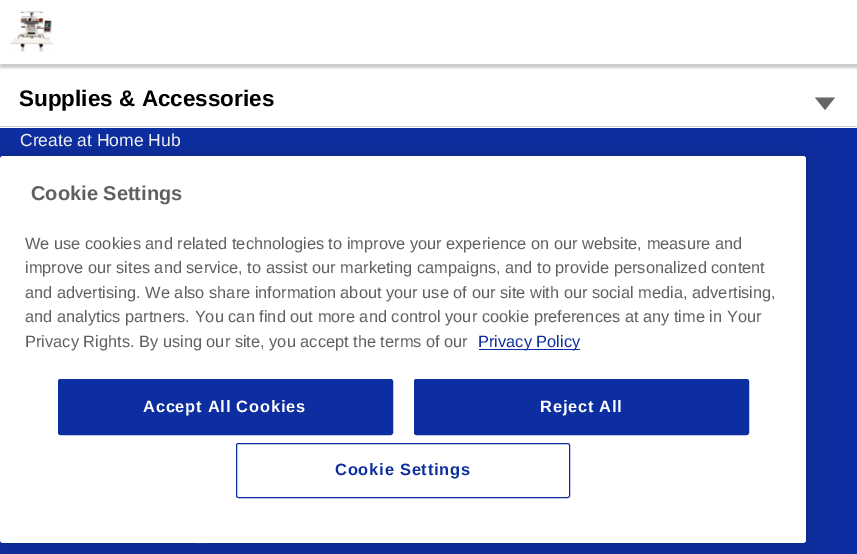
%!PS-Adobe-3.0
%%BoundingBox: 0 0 857 554
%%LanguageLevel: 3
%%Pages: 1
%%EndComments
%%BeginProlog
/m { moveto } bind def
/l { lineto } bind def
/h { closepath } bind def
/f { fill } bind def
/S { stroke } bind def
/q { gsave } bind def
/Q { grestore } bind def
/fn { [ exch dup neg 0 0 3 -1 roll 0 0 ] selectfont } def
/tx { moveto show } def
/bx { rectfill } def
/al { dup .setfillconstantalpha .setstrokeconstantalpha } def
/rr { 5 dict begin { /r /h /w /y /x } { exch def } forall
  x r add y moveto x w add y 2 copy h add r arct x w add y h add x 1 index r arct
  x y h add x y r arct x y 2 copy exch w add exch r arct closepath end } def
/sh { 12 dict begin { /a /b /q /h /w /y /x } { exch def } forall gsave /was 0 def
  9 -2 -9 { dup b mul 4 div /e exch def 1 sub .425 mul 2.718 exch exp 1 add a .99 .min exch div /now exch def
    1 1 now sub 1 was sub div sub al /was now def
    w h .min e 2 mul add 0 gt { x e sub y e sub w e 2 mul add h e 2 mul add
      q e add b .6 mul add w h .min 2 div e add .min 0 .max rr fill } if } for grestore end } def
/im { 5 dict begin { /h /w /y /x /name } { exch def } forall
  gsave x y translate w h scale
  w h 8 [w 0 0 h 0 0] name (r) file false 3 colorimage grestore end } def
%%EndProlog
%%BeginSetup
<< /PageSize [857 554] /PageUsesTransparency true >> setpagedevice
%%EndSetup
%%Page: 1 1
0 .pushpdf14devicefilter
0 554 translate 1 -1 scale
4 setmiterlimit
0.051 0.18 0.627 setrgbcolor
0 0 857 554 bx
1 setgray
0 64 857 64 bx
0 setgray
0 4 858 64 0 1 0.2 sh
1 setgray
0 0 857 64 bx
(image0.raw) 11 10 42 42 im
0.82 setgray
0 126 857 1 bx
/LiberationSans-Bold 22.5 fn
0 setgray
(Supplies & Accessories) 19 106 tx
0.4 setgray
815 97.5 m 835 97.5 l 825 110 l h f
/LiberationSans-Regular 17.5 fn
0.961 0.965 0.973 setrgbcolor
(Create at Home Hub) 20 146 tx
(image1.raw) 196 543 11 1 im
0 setgray
0 156 806 387 3 11 0.2 sh
1 setgray
0 156 806 387 3 rr f
/LiberationSans-Bold 20 fn
0.376 setgray
(Cookie Settings) 31 200 tx
/LiberationSans-Regular 16.4 fn
(We use cookies and related technologies to improve your experience on our website, measure and) 25 249 tx
(improve our sites and service, to assist our marketing campaigns, and to provide personalized content) 25 273 tx
(and advertising. We also share information about your use of our site with our social media, advertising,) 25 298 tx
(and analytics partners. You can find out more and control your cookie preferences at any time in Your) 25 322 tx
(Privacy Rights. By using our site, you accept the terms of our) 25 347 tx
0.051 0.18 0.627 setrgbcolor
479 349 101 1 bx
(Privacy Policy) 478 347 tx
58.5 379.5 334 55 2 rr q f Q
S
/LiberationSans-Bold 16.4 fn
1 setgray
143 412 m 0.8 0 (Accept All Cookies) ashow
0.051 0.18 0.627 setrgbcolor
414.5 379.5 334 55 2 rr q f Q
S
1 setgray
540 412 m 0.8 0 (Reject All) ashow
0.051 0.18 0.627 setrgbcolor
236.5 443.5 333 54 2 rr S
335 475 m 0.8 0 (Cookie Settings) ashow
.poppdf14devicefilter showpage
%%EOF
